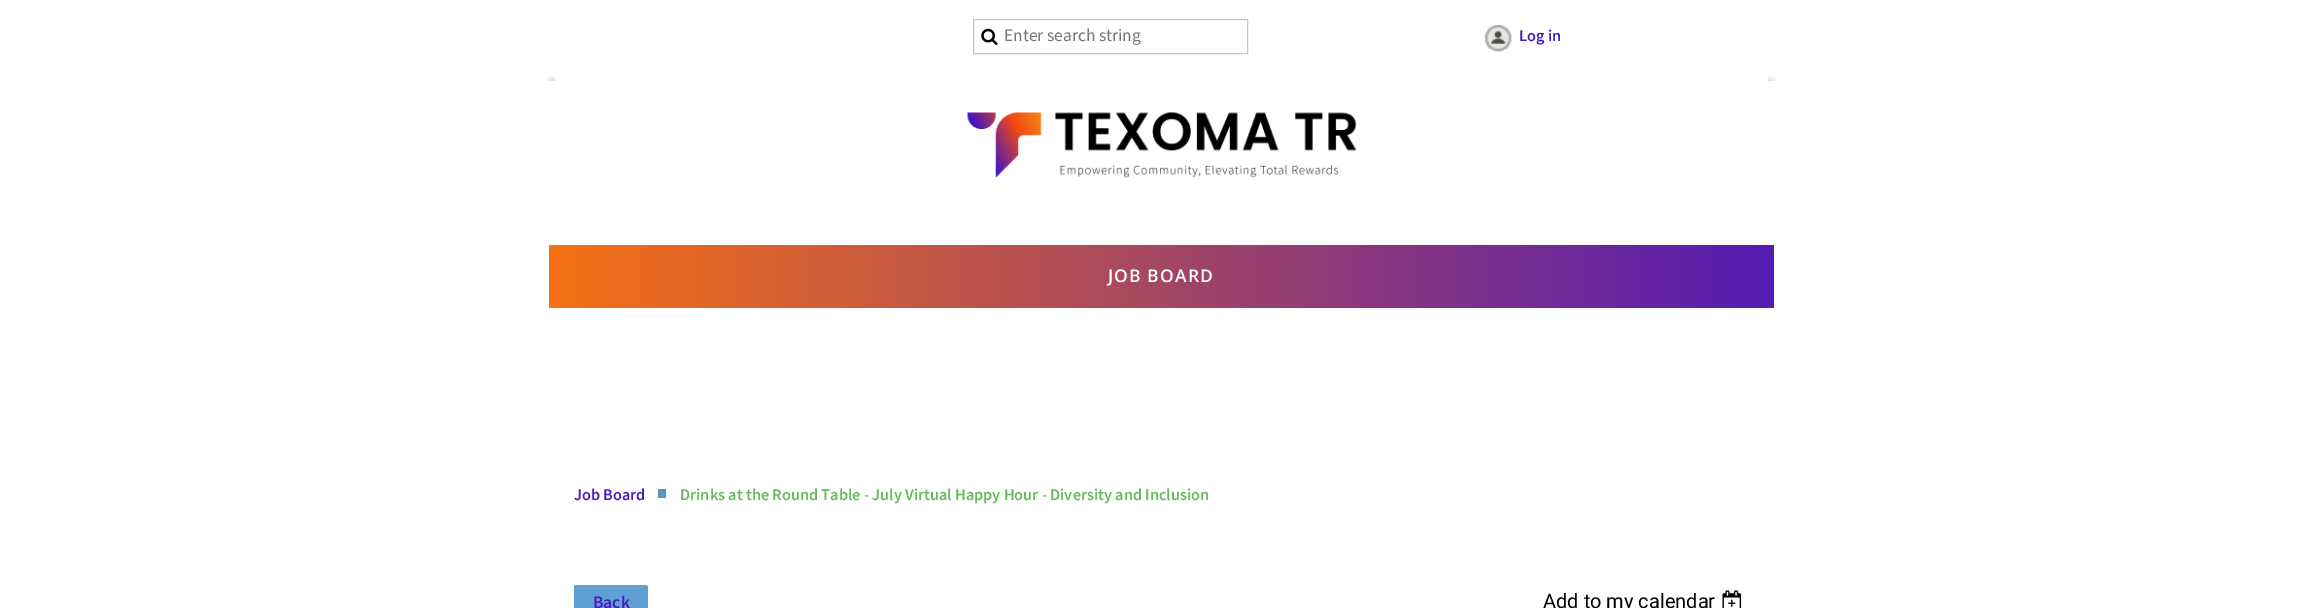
%!PS-Adobe-3.0
%%BoundingBox: 0 0 2322 608
%%LanguageLevel: 3
%%Pages: 1
%%EndComments
%%BeginProlog
/m { moveto } bind def
/l { lineto } bind def
/h { closepath } bind def
/f { fill } bind def
/q { gsave } bind def
/Q { grestore } bind def
/fn { [ exch dup neg 0 0 3 -1 roll 0 0 ] selectfont } def
/tx { moveto show } def
/bx { rectfill } def
/rr { 5 dict begin { /r /h /w /y /x } { exch def } forall
  x r add y moveto x w add y 2 copy h add r arct x w add y h add x 1 index r arct
  x y h add x y r arct x y 2 copy exch w add exch r arct closepath end } def
/im { 5 dict begin { /h /w /y /x /name } { exch def } forall
  gsave x y translate w h scale
  w h 8 [w 0 0 h 0 0] name (r) file false 3 colorimage grestore end } def
%%EndProlog
%%BeginSetup
<< /PageSize [2322 608] >> setpagedevice
%%EndSetup
%%Page: 1 1
0 608 translate 1 -1 scale
4 setmiterlimit
1 setgray
0 0 2322 608 bx
0.776 setgray
973.5 19.5 274 34 rectstroke
(image0.raw) 981 28 17 17 im
/SourceSans3-Regular 17.5 fn
0.459 setgray
(Enter search string) 1004 41 tx
(image1.raw) 1484 25 28 27 im
/SourceSans3-SemiBold 16.25 fn
0.282 0.106 0.745 setrgbcolor
(Log in) 1519 41 tx
(image2.raw) 545 76 1233 5 im
(image3.raw) 967 112 390 66 im
q 549 245 m 1774 245 l 1774 308 l 549 308 l h clip newpath
<< /ShadingType 2 /ColorSpace /DeviceRGB /Coords [549 276 1774 276] /Extend [true true] /Function << /FunctionType 2 /Domain [0 1] /C0 [0.961 0.443 0.075] /C1 [0.329 0.11 0.702] /N 1 >> >> shfill Q
/OpenSans-SemiBold 17.5 fn
1 setgray
1108 282 m 1.1 0 (JOB BOARD) ashow
/SourceSans3-SemiBold 16.25 fn
0.282 0.106 0.745 setrgbcolor
(Job Board) 574 500 tx
0.322 0.592 0.749 setrgbcolor
658 489 8 9 bx
0.4 0.725 0.357 setrgbcolor
(Drinks at the Round Table - July Virtual Happy Hour - Diversity and Inclusion) 680 500 tx
0.373 0.624 0.824 setrgbcolor
574 585 74 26 2.5 rr f
/SourceSans3-SemiBold 17.5 fn
0.282 0.106 0.745 setrgbcolor
(Back) 593 608 tx
/Roboto-Regular 20 fn
0 setgray
(Add to my calendar) 1543 608 tx
(image4.raw) 1722 590 20 18 im
showpage
%%EOF
